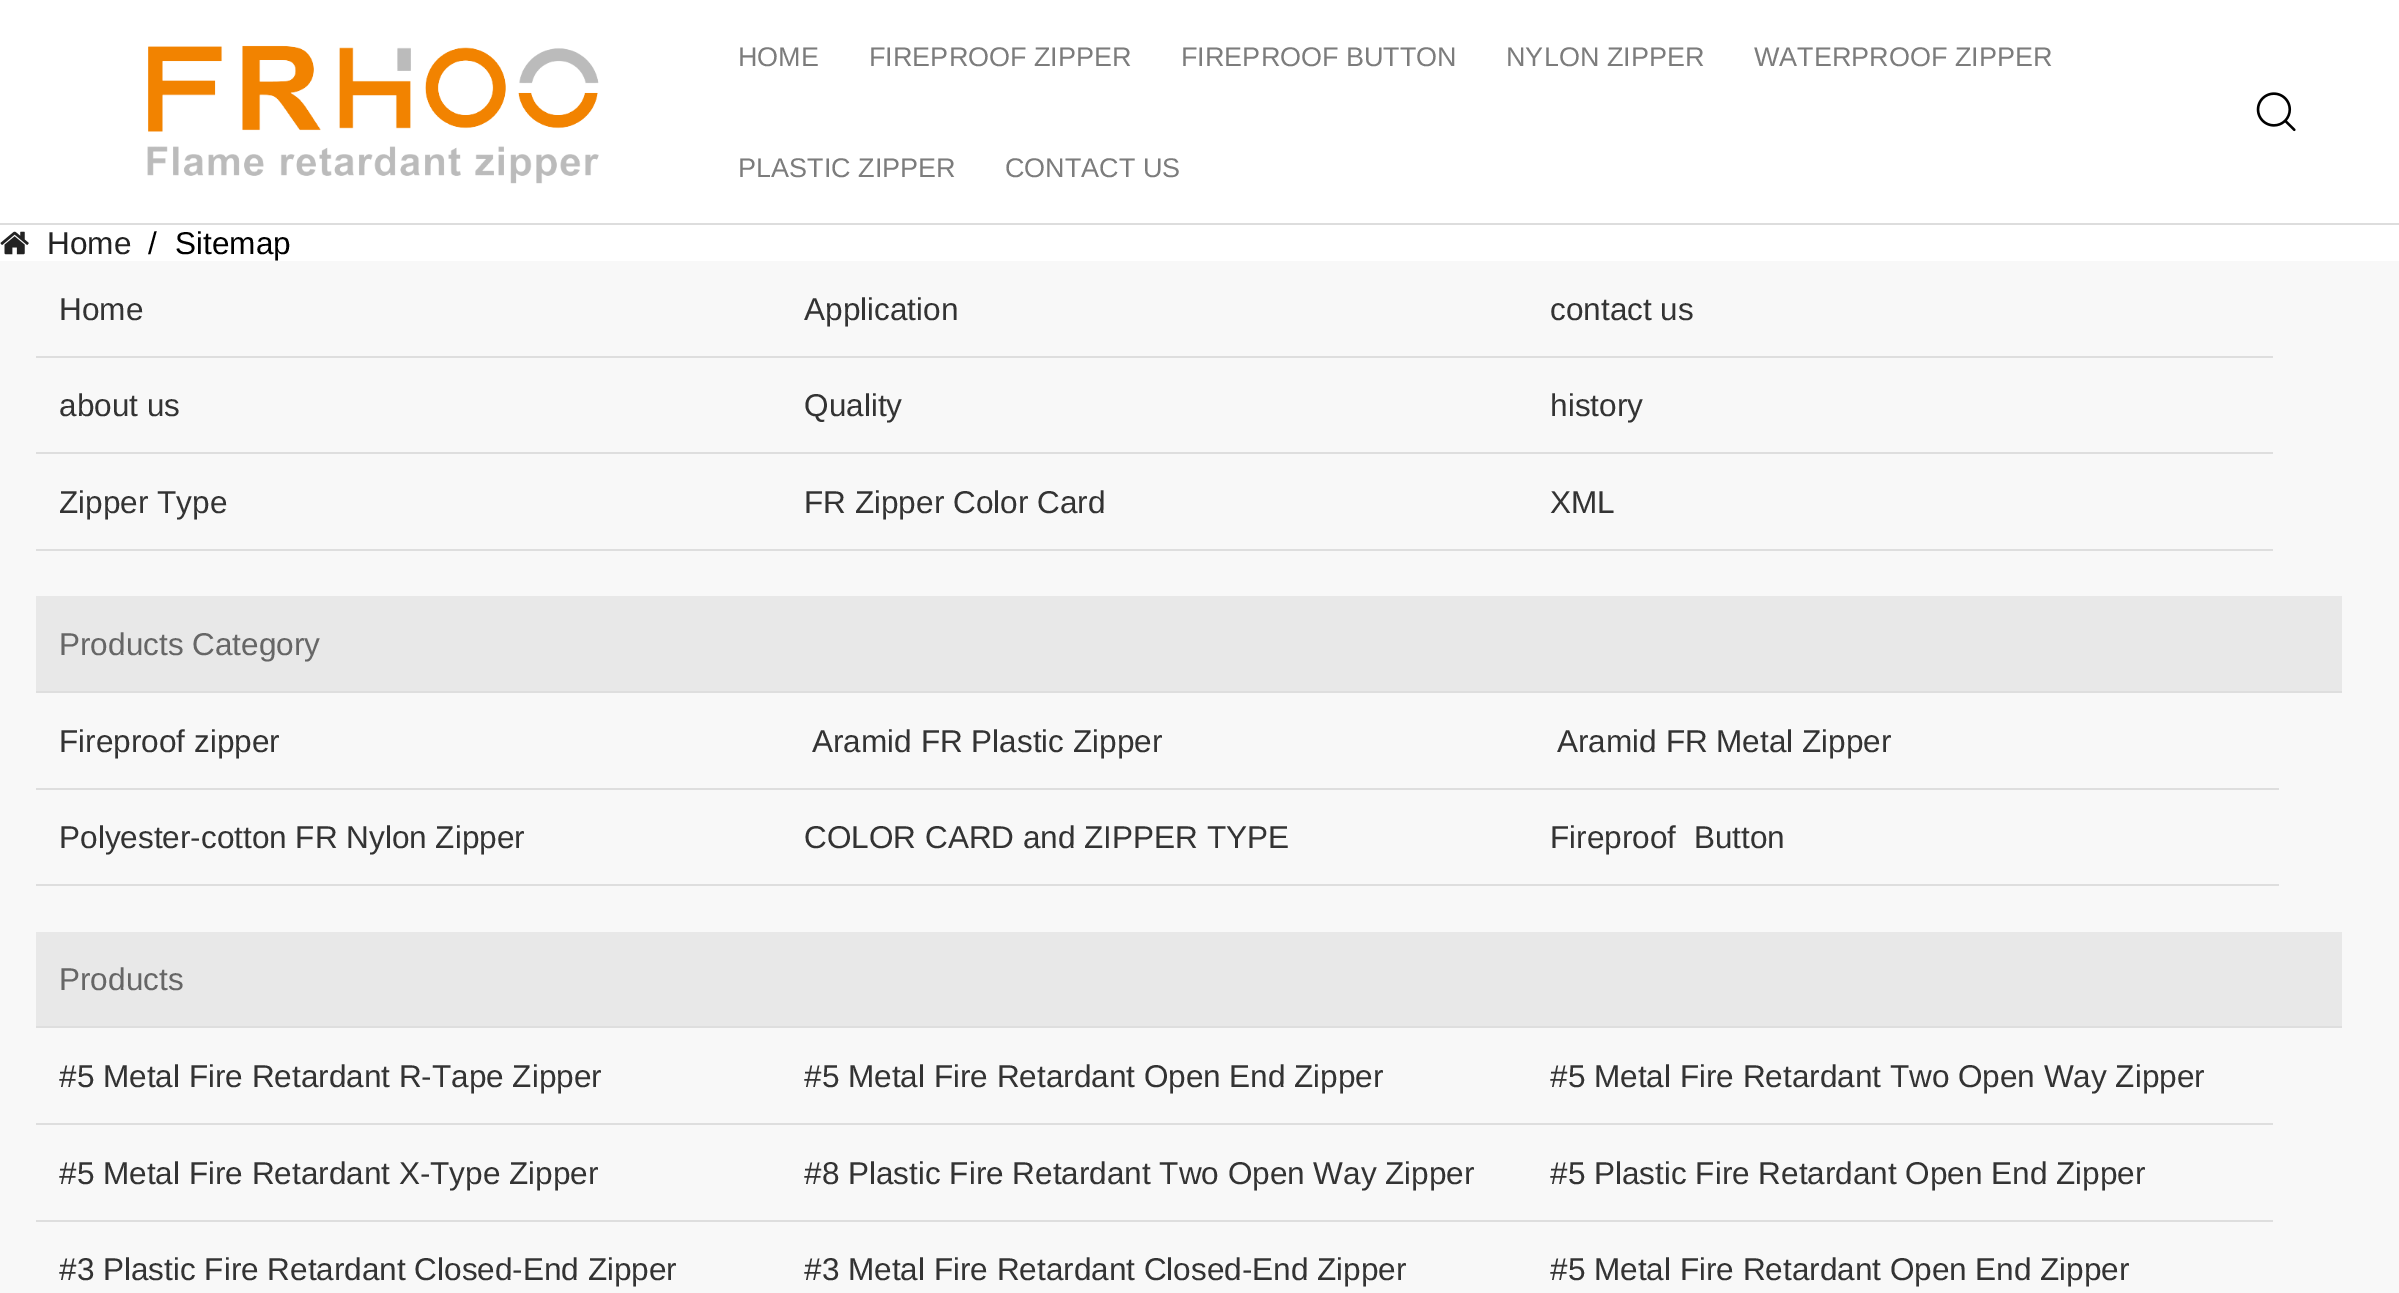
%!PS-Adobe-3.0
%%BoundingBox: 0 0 2399 1293
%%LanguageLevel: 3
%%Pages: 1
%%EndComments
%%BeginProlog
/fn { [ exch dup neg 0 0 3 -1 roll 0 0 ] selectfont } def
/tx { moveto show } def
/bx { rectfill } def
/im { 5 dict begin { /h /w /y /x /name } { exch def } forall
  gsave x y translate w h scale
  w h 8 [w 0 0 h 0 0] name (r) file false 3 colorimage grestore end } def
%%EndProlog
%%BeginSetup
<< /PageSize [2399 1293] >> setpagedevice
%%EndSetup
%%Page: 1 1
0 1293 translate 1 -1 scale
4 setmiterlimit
1 setgray
0 0 2399 1293 bx
0.867 setgray
0 223 2399 2 bx
(image0.raw) 147 45 452 139 im
/LiberationSans-Regular 27 fn
0.486 setgray
(HOME) 738 66 tx
(FIREPROOF ZIPPER) 869 66 tx
(FIREPROOF BUTTON) 1181 66 tx
(NYLON ZIPPER) 1506 66 tx
(WATERPROOF ZIPPER) 1754 66 tx
(PLASTIC ZIPPER) 738 177 tx
(CONTACT US) 1005 177 tx
(image1.raw) 2256 92 40 40 im
(image2.raw) 0 231 29 24 im
/LiberationSans-Regular 31.5 fn
0.137 setgray
(Home) 47 254 tx
0 setgray
(/) 148 254 tx
(Sitemap) 175 254 tx
0.973 setgray
0 261 2399 1032 bx
0.871 setgray
36 356 2237 2 bx
0.2 setgray
(Home) 59 320 tx
(Application) 804 320 tx
(contact us) 1550 320 tx
0.871 setgray
36 452 2237 2 bx
0.2 setgray
(about us) 59 416 tx
(Quality) 804 416 tx
(history) 1550 416 tx
0.871 setgray
36 549 2237 2 bx
0.2 setgray
(Zipper Type) 59 513 tx
(FR Zipper Color Card) 804 513 tx
(XML) 1550 513 tx
0.91 setgray
36 596 2306 95 bx
0.871 setgray
36 691 2306 2 bx
0.4 setgray
(Products Category) 59 655 tx
0.871 setgray
36 788 2243 2 bx
0.2 setgray
(Fireproof zipper) 59 752 tx
(Aramid FR Plastic Zipper) 812 752 tx
(Aramid FR Metal Zipper) 1557 752 tx
0.871 setgray
36 884 2243 2 bx
0.2 setgray
(Polyester-cotton FR Nylon Zipper) 59 848 tx
(COLOR CARD and ZIPPER TYPE) 804 848 tx
(Fireproof  Button) 1550 848 tx
0.91 setgray
36 932 2306 94 bx
0.871 setgray
36 1026 2306 2 bx
0.4 setgray
(Products) 59 990 tx
0.871 setgray
36 1123 2237 2 bx
0.2 setgray
(#5 Metal Fire Retardant R-Tape Zipper) 59 1087 tx
(#5 Metal Fire Retardant Open End Zipper) 804 1087 tx
(#5 Metal Fire Retardant Two Open Way Zipper) 1550 1087 tx
0.871 setgray
36 1220 2237 2 bx
0.2 setgray
(#5 Metal Fire Retardant X-Type Zipper) 59 1184 tx
(#8 Plastic Fire Retardant Two Open Way Zipper) 804 1184 tx
(#5 Plastic Fire Retardant Open End Zipper) 1550 1184 tx
(#3 Plastic Fire Retardant Closed-End Zipper) 59 1280 tx
(#3 Metal Fire Retardant Closed-End Zipper) 804 1280 tx
(#5 Metal Fire Retardant Open End Zipper) 1550 1280 tx
showpage
%%EOF
